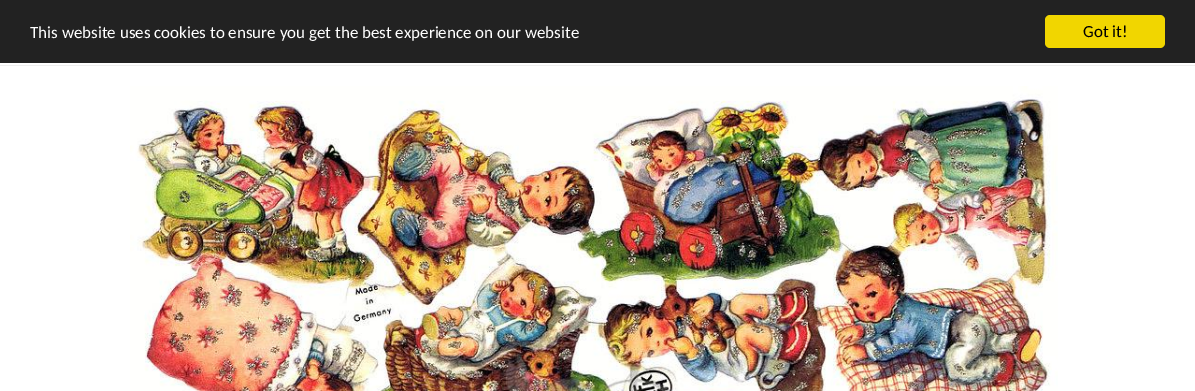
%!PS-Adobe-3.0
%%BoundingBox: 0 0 1195 391
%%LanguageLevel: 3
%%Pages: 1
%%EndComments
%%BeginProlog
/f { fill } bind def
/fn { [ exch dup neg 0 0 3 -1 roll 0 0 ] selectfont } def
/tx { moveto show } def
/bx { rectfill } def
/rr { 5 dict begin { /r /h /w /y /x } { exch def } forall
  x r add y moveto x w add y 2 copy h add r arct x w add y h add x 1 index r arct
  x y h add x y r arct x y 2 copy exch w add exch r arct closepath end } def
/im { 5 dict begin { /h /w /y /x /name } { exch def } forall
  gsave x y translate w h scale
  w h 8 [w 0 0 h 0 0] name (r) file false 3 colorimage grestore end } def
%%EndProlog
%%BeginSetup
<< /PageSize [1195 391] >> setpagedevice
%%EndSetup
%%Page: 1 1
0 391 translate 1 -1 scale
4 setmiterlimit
1 setgray
0 0 1195 391 bx
0.133 setgray
0 0 1195 63 bx
/Carlito-Regular 17 fn
1 setgray
(This website uses cookies to ensure you get the best experience on our website) 30 38 tx
0.945 0.839 0 setrgbcolor
1045 15 120 33 5 rr f
0 setgray
(Got it!) 1083 37 tx
0.933 setgray
0 65 1195 1 bx
(image0.raw) 130 86 928 305 im
showpage
%%EOF
